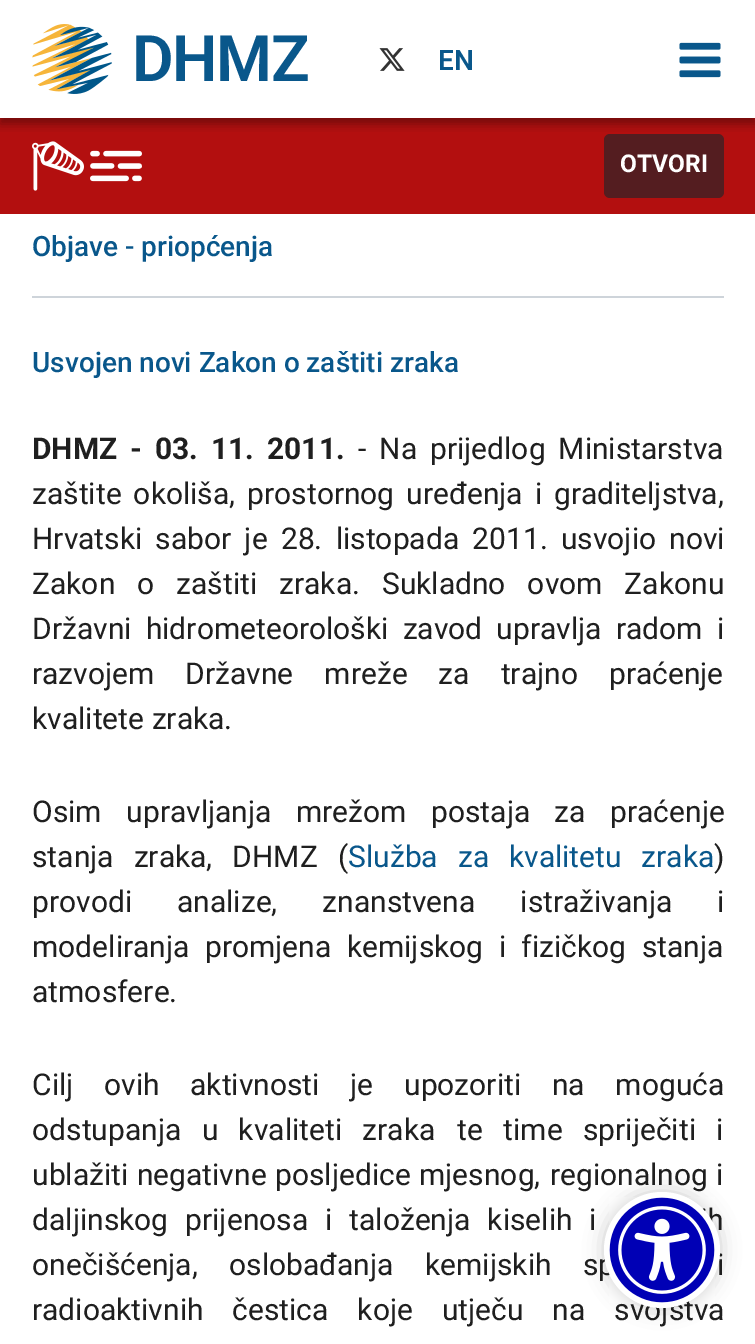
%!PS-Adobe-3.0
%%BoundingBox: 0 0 755 1344
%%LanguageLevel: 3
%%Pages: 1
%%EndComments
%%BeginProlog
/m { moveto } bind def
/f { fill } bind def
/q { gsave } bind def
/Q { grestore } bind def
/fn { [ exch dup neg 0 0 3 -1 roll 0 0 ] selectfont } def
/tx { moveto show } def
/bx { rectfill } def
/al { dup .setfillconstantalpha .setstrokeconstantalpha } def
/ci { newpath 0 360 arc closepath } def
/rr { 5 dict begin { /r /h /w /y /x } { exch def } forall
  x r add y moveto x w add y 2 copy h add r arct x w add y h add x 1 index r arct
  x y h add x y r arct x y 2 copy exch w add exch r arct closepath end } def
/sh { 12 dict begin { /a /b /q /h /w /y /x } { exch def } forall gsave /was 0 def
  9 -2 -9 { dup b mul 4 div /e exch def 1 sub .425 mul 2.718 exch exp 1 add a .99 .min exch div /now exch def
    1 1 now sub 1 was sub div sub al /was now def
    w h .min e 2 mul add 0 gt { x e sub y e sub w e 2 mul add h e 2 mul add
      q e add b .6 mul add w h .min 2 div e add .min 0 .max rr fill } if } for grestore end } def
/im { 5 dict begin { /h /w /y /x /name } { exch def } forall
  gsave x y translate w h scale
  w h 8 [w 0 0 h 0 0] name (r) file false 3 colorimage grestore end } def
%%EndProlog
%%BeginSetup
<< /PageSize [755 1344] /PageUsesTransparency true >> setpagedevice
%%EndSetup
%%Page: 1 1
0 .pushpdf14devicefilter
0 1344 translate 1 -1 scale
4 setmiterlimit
1 setgray
0 0 755 1344 bx
0.702 0.059 0.059 setrgbcolor
0 118 755 96 bx
0.329 0.114 0.125 setrgbcolor
604 134 120 64 6 rr f
q
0 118 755 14 rectclip
0 setgray
0 6 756 118 0 5 0.35 sh
Q
(image0.raw) 32 24 80 70 im
/Roboto-SemiBold 64 fn
0.035 0.341 0.545 setrgbcolor
132 81 m -1.5 0 (DHMZ) ashow
(image1.raw) 379 48 26 23 im
/Roboto-SemiBold 28 fn
(EN) 438 70 tx
(image2.raw) 679 42 42 36 im
(image3.raw) 32 141 52 50 im
(image4.raw) 90 150 52 32 im
/Roboto-Bold 24.5 fn
1 setgray
(OTVORI) 620 172 tx
/Roboto-Medium 28 fn
0.035 0.341 0.545 setrgbcolor
(Objave - priopćenja) 32 256 tx
0.808 0.831 0.855 setrgbcolor
32 296 692 2 bx
0.035 0.341 0.545 setrgbcolor
(Usvojen novi Zakon o zaštiti zraka) 32 372 tx
/Roboto-Bold 30 fn
0.122 setgray
32 459 m 5.5 0 32 (DHMZ - 03. 11. 2011.) widthshow
/Roboto-Regular 30 fn
358 459 m 5.5 0 32 (- Na prijedlog Ministarstva) widthshow
32 504 m 4.5 0 32 (zaštite okoliša, prostornog uređenja i graditeljstva,) widthshow
32 549 m 5.75 0 32 (Hrvatski sabor je 28. listopada 2011. usvojio novi) widthshow
32 594 m 14.5 0 32 (Zakon o zaštiti zraka. Sukladno ovom Zakonu) widthshow
32 639 m 6.75 0 32 (Državni hidrometeorološki zavod upravlja radom i) widthshow
32 684 m 23.5 0 32 (razvojem Državne mreže za trajno praćenje) widthshow
(kvalitete zraka.) 32 729 tx
32 822 m 17 0 32 (Osim upravljanja mrežom postaja za praćenje) widthshow
32 867 m 12.5 0 32 (stanja zraka, DHMZ \() widthshow
0.035 0.341 0.545 setrgbcolor
348 867 m 12.5 0 32 (Služba za kvalitetu zraka) widthshow
0.122 setgray
(\)) 714 867 tx
32 912 m 37.5 0 32 (provodi analize, znanstvena istraživanja i) widthshow
32 957 m 8 0 32 (modeliranja promjena kemijskog i fizičkog stanja) widthshow
(atmosfere.) 32 1002 tx
32 1095 m 23.25 0 32 (Cilj ovih aktivnosti je upozoriti na moguća) widthshow
32 1140 m 13 0 32 (odstupanja u kvaliteti zraka) widthshow
457 1140 m 13 0 32 (te time spriječiti i) widthshow
32 1185 m 1 0 32 (ublažiti negativne posljedice mjesnog,) widthshow
550 1185 m 1 0 32 (regionalnog i) widthshow
32 1230 m 9.5 0 32 (daljinskog prijenosa i taloženja kiselih i) widthshow
707 1230 m 9.5 0 32 (h) widthshow
32 1275 m 24 0 32 (onečišćenja, oslobađanja kemijskih sp) widthshow
717 1275 m 24 0 32 (i) widthshow
32 1320 m 21.5 0 32 (radioaktivnih čestica koje utječu na svojstva) widthshow
0 setgray
604 1192 116 116 58 10 0.2 sh
1 setgray
662 1250 58 ci f
(image5.raw) 609 1197 106 106 im
.poppdf14devicefilter showpage
%%EOF
